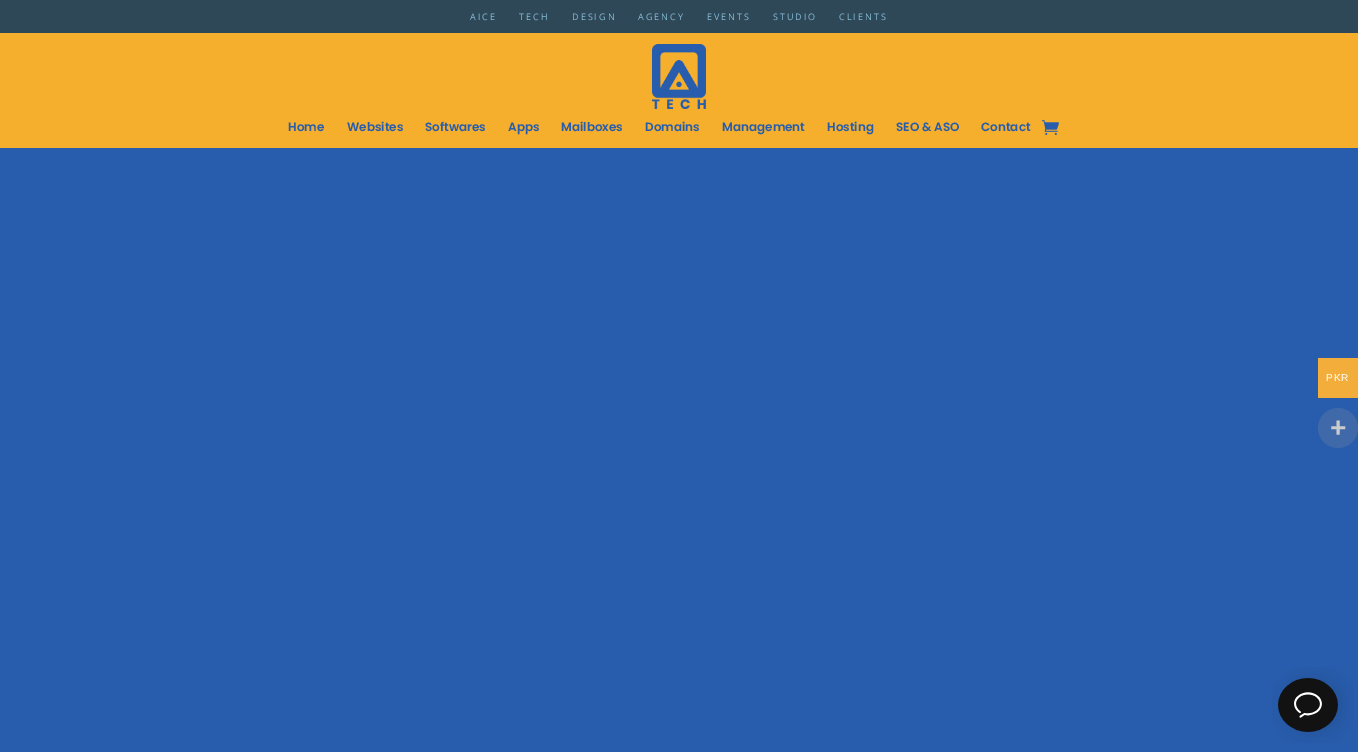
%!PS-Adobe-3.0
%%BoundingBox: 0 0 1358 752
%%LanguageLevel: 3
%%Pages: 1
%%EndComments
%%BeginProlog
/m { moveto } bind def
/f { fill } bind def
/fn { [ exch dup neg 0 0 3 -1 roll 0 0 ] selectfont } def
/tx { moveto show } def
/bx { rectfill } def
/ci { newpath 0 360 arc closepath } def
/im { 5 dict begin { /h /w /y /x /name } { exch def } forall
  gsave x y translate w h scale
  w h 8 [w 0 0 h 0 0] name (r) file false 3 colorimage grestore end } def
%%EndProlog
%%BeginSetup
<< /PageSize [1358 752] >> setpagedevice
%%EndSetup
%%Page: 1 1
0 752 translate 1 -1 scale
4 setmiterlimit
0.157 0.365 0.678 setrgbcolor
0 0 1358 752 bx
0.18 0.282 0.341 setrgbcolor
0 0 1358 33 bx
/OpenSans-Regular 9 fn
0.522 0.733 0.843 setrgbcolor
470 20 m 2 0 (AICE) ashow
519 20 m 2 0 (TECH) ashow
572 20 m 2 0 (DESIGN) ashow
638 20 m 2 0 (AGENCY) ashow
707 20 m 2 0 (EVENTS) ashow
773 20 m 2 0 (STUDIO) ashow
839 20 m 2 0 (CLIENTS) ashow
0.961 0.686 0.176 setrgbcolor
0 33 1358 115 bx
(image0.raw) 652 44 54 65 im
/Poppins-SemiBold 12 fn
0.157 0.365 0.678 setrgbcolor
(Home) 288 131 tx
(Websites) 347 131 tx
(Softwares) 425 131 tx
(Apps) 508 131 tx
(Mailboxes) 561 131 tx
(Domains) 645 131 tx
(Management) 722 131 tx
(Hosting) 827 131 tx
(SEO & ASO) 896 131 tx
(Contact) 981 131 tx
(image1.raw) 1042 120 17 15 im
0.953 0.678 0.227 setrgbcolor
1318 358 40 40 bx
/LiberationSans-Regular 10 fn
1 setgray
1326 381 m 1 0 (PKR) ashow
0.247 0.412 0.663 setrgbcolor
1338 428 20 ci f
/LiberationSans-Bold 28 fn
0.8 setgray
(+) 1330 437 tx
(image2.raw) 1272 667 82 76 im
showpage
%%EOF
